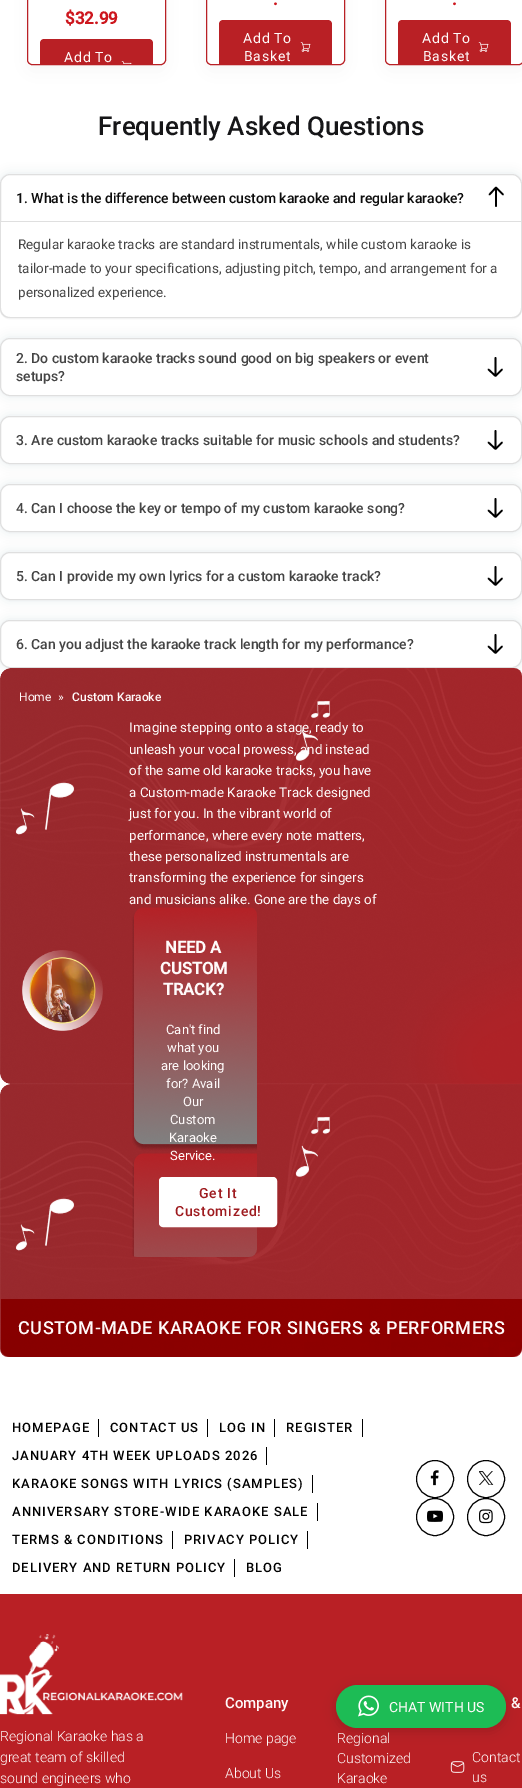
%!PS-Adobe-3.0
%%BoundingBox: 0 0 522 1788
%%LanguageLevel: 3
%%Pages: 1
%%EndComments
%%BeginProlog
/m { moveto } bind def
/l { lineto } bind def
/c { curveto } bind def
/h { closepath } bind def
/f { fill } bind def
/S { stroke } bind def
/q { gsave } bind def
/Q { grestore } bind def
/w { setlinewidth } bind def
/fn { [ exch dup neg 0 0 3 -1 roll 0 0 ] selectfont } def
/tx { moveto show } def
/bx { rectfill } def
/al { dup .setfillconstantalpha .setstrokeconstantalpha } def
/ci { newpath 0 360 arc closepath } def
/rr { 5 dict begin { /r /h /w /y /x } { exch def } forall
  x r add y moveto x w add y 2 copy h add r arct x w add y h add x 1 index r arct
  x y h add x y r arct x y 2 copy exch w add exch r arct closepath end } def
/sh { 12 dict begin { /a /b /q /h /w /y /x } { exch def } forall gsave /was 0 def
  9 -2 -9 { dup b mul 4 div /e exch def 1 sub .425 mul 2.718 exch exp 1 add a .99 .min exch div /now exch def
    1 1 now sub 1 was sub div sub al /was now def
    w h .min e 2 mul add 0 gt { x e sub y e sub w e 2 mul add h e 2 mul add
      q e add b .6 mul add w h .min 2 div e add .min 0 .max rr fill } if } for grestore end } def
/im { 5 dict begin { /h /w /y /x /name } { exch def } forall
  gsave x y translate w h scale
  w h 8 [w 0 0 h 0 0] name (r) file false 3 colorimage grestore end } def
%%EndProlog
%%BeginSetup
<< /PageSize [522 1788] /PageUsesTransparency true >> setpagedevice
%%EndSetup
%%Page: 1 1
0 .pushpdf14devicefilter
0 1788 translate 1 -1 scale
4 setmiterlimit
1 setgray
0 0 522 1788 bx
0 setgray
27 -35 139 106 5 10 0.04 sh
1 setgray
27.5 -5.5 138 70 4.5 rr q f Q
0.725 0.125 0.145 setrgbcolor
S
/Roboto-Bold 17 fn
0.804 0.09 0.118 setrgbcolor
($32.99) 65 24 tx
0.725 0.125 0.145 setrgbcolor
41 40 111 24 bx
44 39 m 42 39 40 41 40 43 c 40 64 l 41 64 l 41 43 l 41 41 42 40 44 40 c 149 40 l 151 40 152 41 152 43 c 152 64 l 153 64 l 153 43 l 153 41 151 39 149 39 c h f
/Roboto-Regular 14 fn
1 0.98 0.98 setrgbcolor
64 62 m 0.75 0 (Add To) ashow
(image0.raw) 121 61 11 3 im
0 setgray
206 -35 139 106 5 10 0.04 sh
1 setgray
206.5 -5.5 138 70 4.5 rr q f Q
0.725 0.125 0.145 setrgbcolor
S
/Roboto-Bold 17 fn
0.804 0.09 0.118 setrgbcolor
(.) 273 5 tx
0.725 0.125 0.145 setrgbcolor
220 21 111 43 bx
223 20 m 221 20 219 22 219 24 c 219 64 l 220 64 l 220 24 l 220 22 221 21 223 21 c 328 21 l 330 21 331 22 331 24 c 331 64 l 332 64 l 332 24 l 332 22 330 20 328 20 c h f
/Roboto-Regular 14 fn
1 0.98 0.98 setrgbcolor
243 43 m 0.75 0 (Add To) ashow
(image1.raw) 300 42 11 10 im
244 61 m 0.75 0 (Basket) ashow
0 setgray
385 -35 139 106 5 10 0.04 sh
1 setgray
385.5 -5.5 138 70 4.5 rr q f Q
0.725 0.125 0.145 setrgbcolor
S
/Roboto-Bold 17 fn
0.804 0.09 0.118 setrgbcolor
(.) 452 5 tx
0.725 0.125 0.145 setrgbcolor
399 21 111 43 bx
402 20 m 400 20 398 22 398 24 c 398 64 l 399 64 l 399 24 l 399 22 400 21 402 21 c 507 21 l 509 21 510 22 510 24 c 510 64 l 511 64 l 511 24 l 511 22 509 20 507 20 c h f
/Roboto-Regular 14 fn
1 0.98 0.98 setrgbcolor
422 43 m 0.75 0 (Add To) ashow
(image1.raw) 478 42 11 10 im
423 61 m 0.75 0 (Basket) ashow
/Roboto-Medium 26 fn
0.086 0.086 0.094 setrgbcolor
(Frequently Asked Questions) 98 135 tx
0.063 0.259 0.38 setrgbcolor
-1 173 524 50 11 5 0.09 sh
1 setgray
10 174.5 m 512 174.5 l 517 174.5 521.5 179 521.5 184 c 521.5 221.5 l 0.5 221.5 l 0.5 184 l 0.5 179 5 174.5 10 174.5 c h q f Q
0.875 setgray
S
/Roboto-Medium 14 fn
0.047 setgray
(1. What is the difference between custom karaoke and regular karaoke?) 16 203 tx
0 setgray
1.7 w
1 setlinecap
1 setlinejoin
496 206 m 496 189.5 l 489.5 194.5 m 496 187.5 l 503 194.5 l S
0 223 522 96 10 0.5 0.05 sh
1 setgray
0 222 m 522 222 l 522 308 l 522 313.5 517.5 318 512 318 c 10 318 l 4.5 318 0 313.5 0 308 c h f
0.12 al
0 setgray
0 222 m 522 222 l 522 308 l 522 314 518 318 512 318 c 10 318 l 4 318 0 314 0 308 c h 1 222 m 521 222 l 521 308 l 521 313 517 317 512 317 c 10 317 l 5 317 1 313 1 308 c h eofill
/Roboto-Regular 13.5 fn
1 al
0.267 setgray
(Regular karaoke tracks are standard instrumentals, while custom karaoke is) 18 249 tx
(tailor-made to your specifications, adjusting pitch, tempo, and arrangement for a) 18 273 tx
(personalized experience.) 18 297 tx
0.063 0.259 0.38 setrgbcolor
-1 337 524 60 11 5 0.09 sh
1 setgray
0.5 338.5 521 57 9.5 rr q f Q
0.875 setgray
1 w
0 setlinecap
0 setlinejoin
S
/Roboto-Medium 14 fn
0.267 setgray
(2. Do custom karaoke tracks sound good on big speakers or event) 16 363 tx
(setups?) 16 381 tx
0 setgray
1.7 w
1 setlinecap
1 setlinejoin
495.5 358 m 495.5 374.5 l 502 369.5 m 495.5 376 l 488.5 369.5 l S
0.063 0.259 0.38 setrgbcolor
-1 415 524 50 11 5 0.09 sh
1 setgray
0.5 416.5 521 47 9.5 rr q f Q
0.875 setgray
1 w
0 setlinecap
0 setlinejoin
S
0.267 setgray
(3. Are custom karaoke tracks suitable for music schools and students?) 16 445 tx
0 setgray
1.7 w
1 setlinecap
1 setlinejoin
495.5 431 m 495.5 447.5 l 502 442.5 m 495.5 449 l 488.5 442.5 l S
0.063 0.259 0.38 setrgbcolor
-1 483 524 50 11 5 0.09 sh
1 setgray
0.5 484.5 521 47 9.5 rr q f Q
0.875 setgray
1 w
0 setlinecap
0 setlinejoin
S
0.267 setgray
(4. Can I choose the key or tempo of my custom karaoke song?) 16 513 tx
0 setgray
1.7 w
1 setlinecap
1 setlinejoin
495.5 499 m 495.5 515.5 l 502 510.5 m 495.5 517 l 488.5 510.5 l S
0.063 0.259 0.38 setrgbcolor
-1 551 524 50 11 5 0.09 sh
1 setgray
0.5 552.5 521 47 9.5 rr q f Q
0.875 setgray
1 w
0 setlinecap
0 setlinejoin
S
0.267 setgray
(5. Can I provide my own lyrics for a custom karaoke track?) 16 581 tx
0 setgray
1.7 w
1 setlinecap
1 setlinejoin
495.5 567 m 495.5 583.5 l 502 578.5 m 495.5 585 l 488.5 578.5 l S
0.063 0.259 0.38 setrgbcolor
-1 619 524 50 11 5 0.09 sh
1 setgray
0.5 620.5 521 47 9.5 rr q f Q
0.875 setgray
1 w
0 setlinecap
0 setlinejoin
S
0.267 setgray
(6. Can you adjust the karaoke track length for my performance?) 16 649 tx
0 setgray
1.7 w
1 setlinecap
1 setlinejoin
495.5 635 m 495.5 651.5 l 502 646.5 m 495.5 653 l 488.5 646.5 l S
(image2.raw) 0 668 522 689 im
/Roboto-Regular 12 fn
1 0.98 0.98 setrgbcolor
(Home) 19 701 tx
(») 58 701 tx
/Roboto-Medium 12 fn
(Custom Karaoke) 72 701 tx
(image3.raw) 22 950 81 81 im
/Roboto-Regular 13.4 fn
(Imagine stepping onto a stage, ready to) 129 732 tx
(unleash your vocal prowess, and instead) 129 754 tx
(of the same old karaoke tracks, you have) 129 775 tx
(a Custom-made Karaoke Track designed) 129 797 tx
(just for you. In the vibrant world of) 129 818 tx
(performance, where every note matters,) 129 840 tx
(these personalized instrumentals are) 129 861 tx
(transforming the experience for singers) 129 882 tx
(and musicians alike. Gone are the days of) 129 904 tx
(image4.raw) 132 907 125 350 im
/Roboto-Bold 16.5 fn
(NEED A) 165 953 tx
(CUSTOM) 160 974 tx
(TRACK?) 163 995 tx
/Roboto-Regular 13 fn
(Can't find) 166 1034 tx
(what you) 167 1052 tx
(are looking) 161 1070 tx
(for? Avail) 166 1088 tx
(Our) 183 1106 tx
(Custom) 170 1124 tx
(Karaoke) 169 1142 tx
(Service.) 170 1160 tx
q
159 1177 118 50 4 rr clip newpath
1 setgray
160 1178 116 48 bx
Q
1 setgray
1 w
0 setlinecap
0 setlinejoin
159.5 1177.5 117 49 3.5 rr S
/Roboto-Medium 14 fn
0.62 0.106 0.122 setrgbcolor
199 1198 m 0.75 0 (Get It) ashow
175 1216 m 0.75 0 (Customized!) ashow
(image5.raw) 0 1299 522 58 im
/Roboto-Medium 18 fn
1 0.98 0.98 setrgbcolor
18 1334 m 0.5 0 (CUSTOM-MADE KARAOKE FOR SINGERS & PERFORMERS) ashow
0 setgray
98 1419 1 18 bx
/Roboto-Medium 13 fn
12 1432 m 1 0 (HOMEPAGE) ashow
207 1419 1 18 bx
110 1432 m 1 0 (CONTACT US) ashow
274 1419 1 18 bx
219 1432 m 1 0 (LOG IN) ashow
362 1419 1 18 bx
286 1432 m 1 0 (REGISTER) ashow
266 1447 1 18 bx
12 1460 m 1 0 (JANUARY 4TH WEEK UPLOADS 2026) ashow
312 1475 1 18 bx
12 1488 m 1 0 (KARAOKE SONGS WITH LYRICS \(SAMPLES\)) ashow
317 1503 1 18 bx
12 1516 m 1 0 (ANNIVERSARY STORE-WIDE KARAOKE SALE) ashow
172 1531 1 18 bx
12 1544 m 1 0 (TERMS & CONDITIONS) ashow
307 1531 1 18 bx
184 1544 m 1 0 (PRIVACY POLICY) ashow
234 1559 1 18 bx
12 1572 m 1 0 (DELIVERY AND RETURN POLICY) ashow
246 1572 m 1 0 (BLOG) ashow
435 1479 18.5 ci S
(image6.raw) 430 1470 9 16 im
486 1479 18.5 ci S
(image7.raw) 479 1471 15 14 im
435 1517 18.5 ci S
(image8.raw) 427 1510 16 12 im
486 1517 18.5 ci S
(image9.raw) 479 1509 14 15 im
0.725 0.125 0.145 setrgbcolor
0 1594 522 194 bx
(image10.raw) 0 1634 183 81 im
/Roboto-Light 14 fn
1 0.98 0.98 setrgbcolor
(Regional Karaoke has a) 0 1741 tx
(great team of skilled) 0 1762 tx
(sound engineers who) 0 1783 tx
/Roboto-Medium 15 fn
(Company) 225 1708 tx
/Roboto-Light 14 fn
(Home page) 225 1743 tx
(About Us) 225 1778 tx
(Regional) 337 1743 tx
(Customized) 337 1763 tx
(Karaoke) 337 1783 tx
/Roboto-Medium 15 fn
(&) 511 1708 tx
/Roboto-Light 14 fn
(Contact) 472 1762 tx
(image11.raw) 450 1761 15 12 im
(us) 472 1782 tx
0 setgray
336 1688 170 43 21.5 6 0.15 sh
0.114 0.737 0.333 setrgbcolor
336 1685 170 43 21.5 rr f
(image12.raw) 358 1695 21 22 im
/Roboto-Regular 14 fn
1 0.98 0.98 setrgbcolor
(CHAT WITH US) 389 1712 tx
.poppdf14devicefilter showpage
%%EOF
